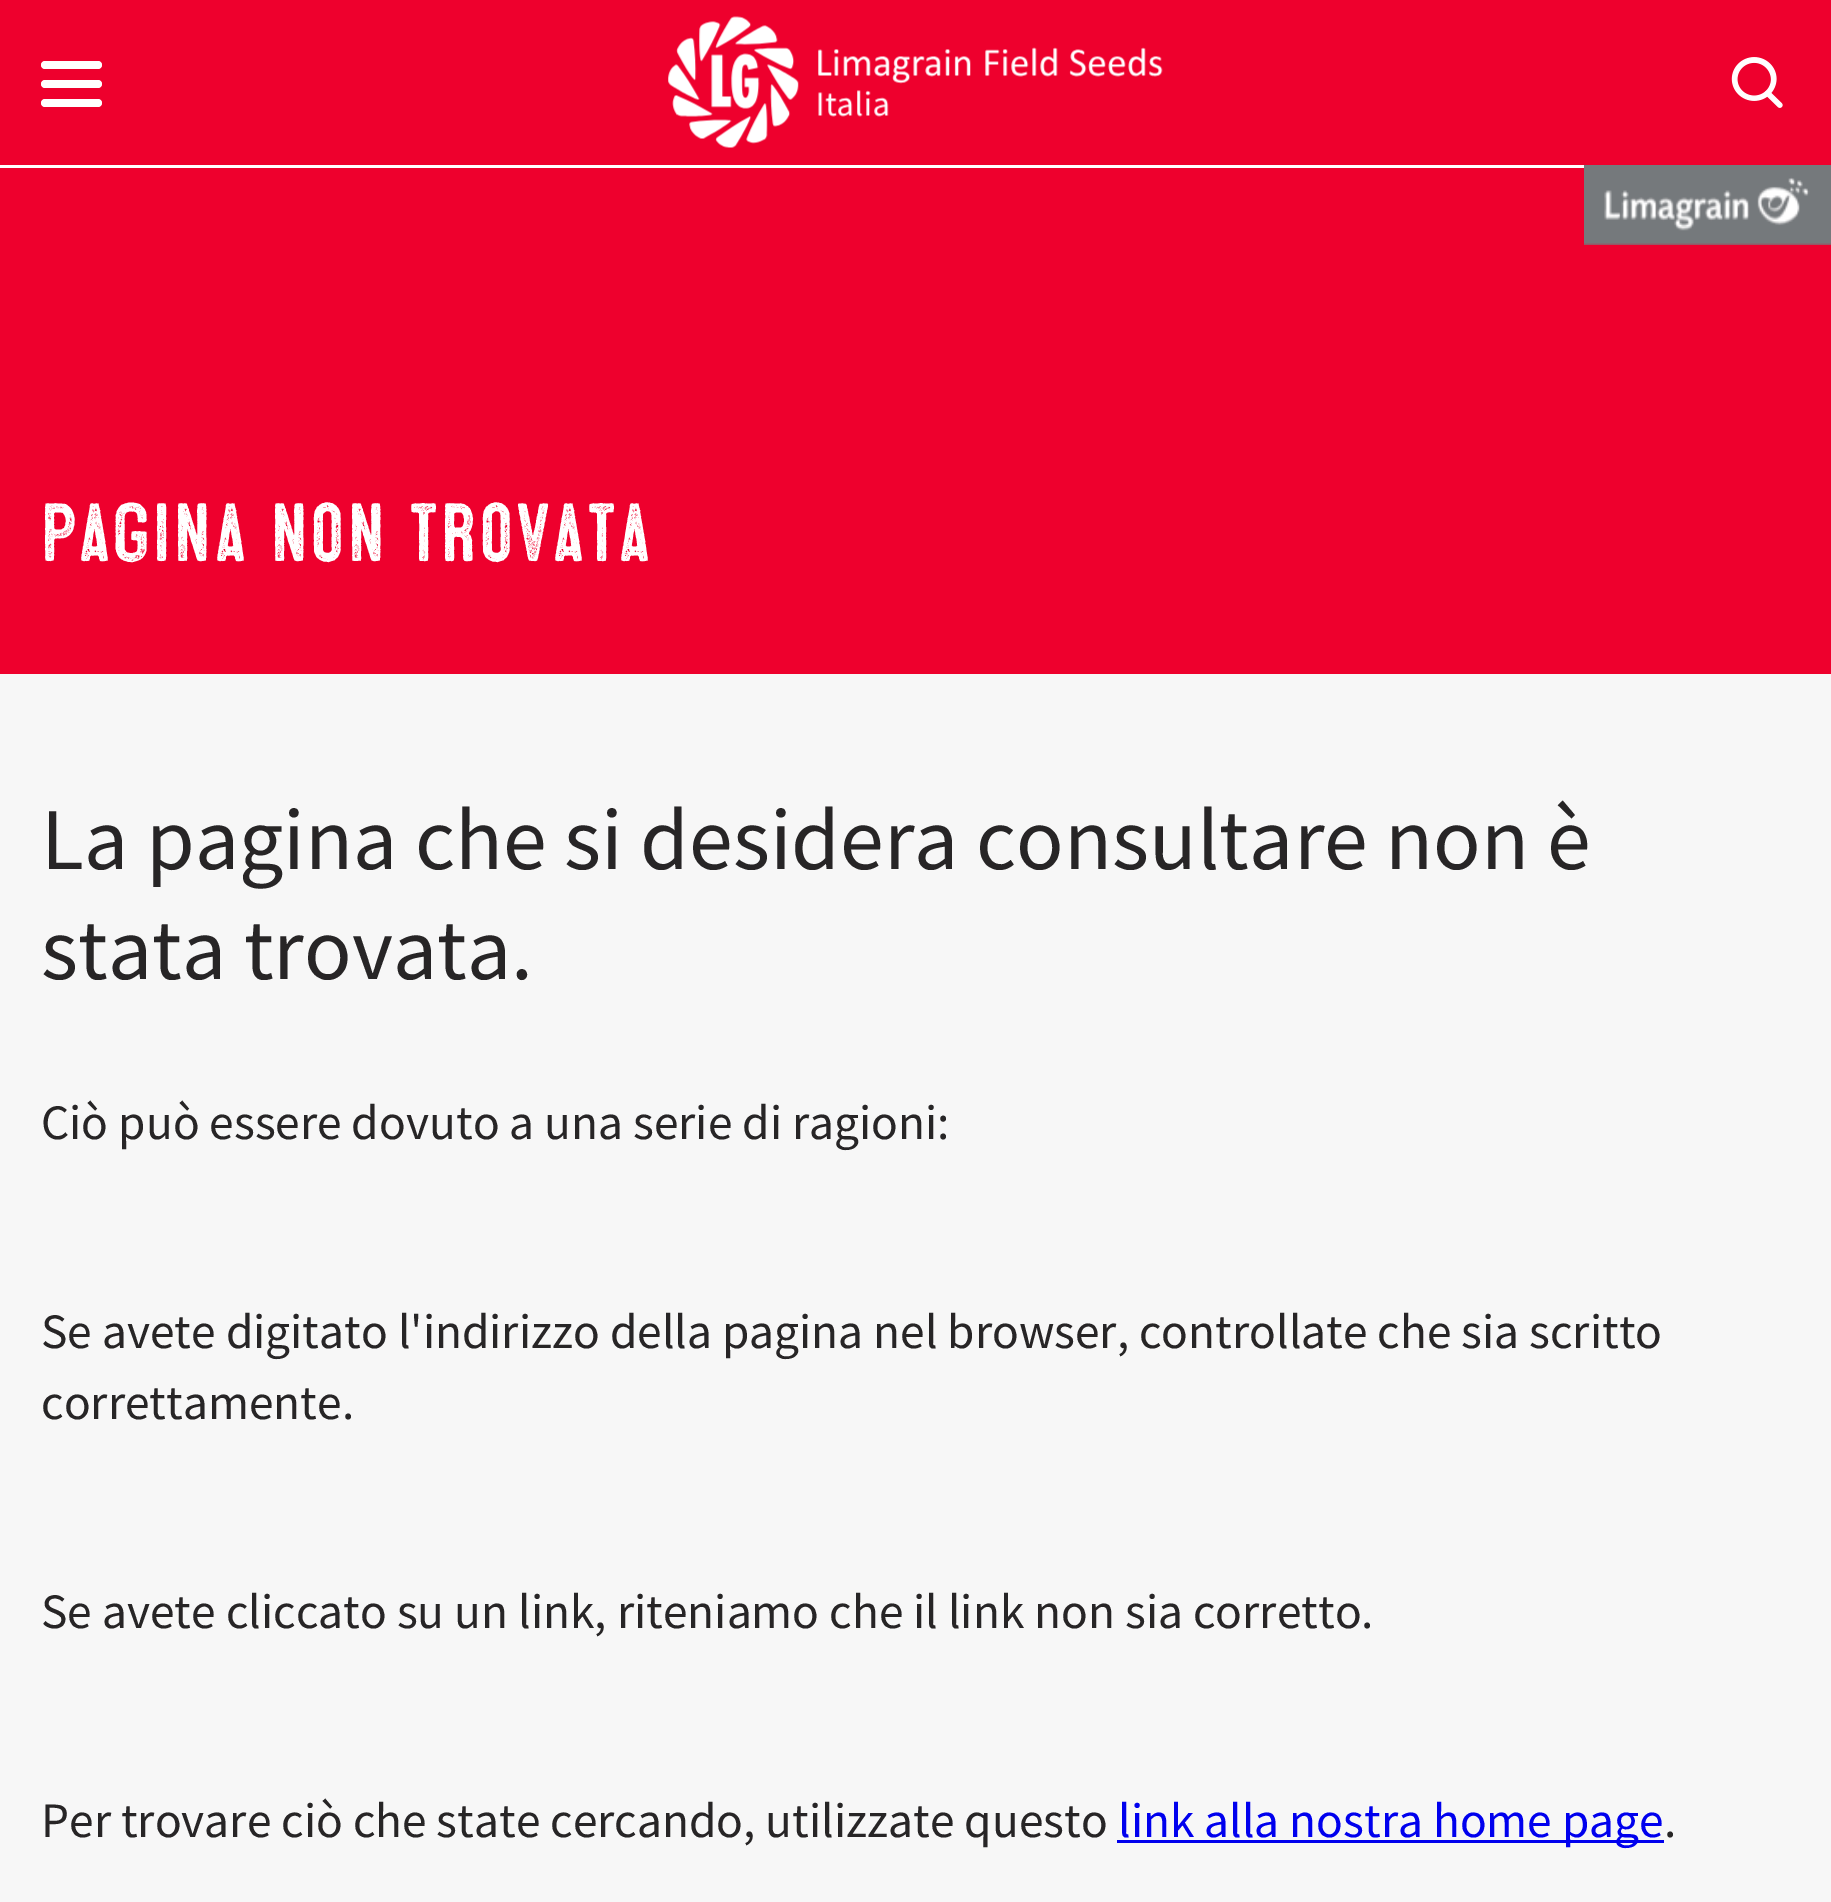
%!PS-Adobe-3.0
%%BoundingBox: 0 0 1831 1902
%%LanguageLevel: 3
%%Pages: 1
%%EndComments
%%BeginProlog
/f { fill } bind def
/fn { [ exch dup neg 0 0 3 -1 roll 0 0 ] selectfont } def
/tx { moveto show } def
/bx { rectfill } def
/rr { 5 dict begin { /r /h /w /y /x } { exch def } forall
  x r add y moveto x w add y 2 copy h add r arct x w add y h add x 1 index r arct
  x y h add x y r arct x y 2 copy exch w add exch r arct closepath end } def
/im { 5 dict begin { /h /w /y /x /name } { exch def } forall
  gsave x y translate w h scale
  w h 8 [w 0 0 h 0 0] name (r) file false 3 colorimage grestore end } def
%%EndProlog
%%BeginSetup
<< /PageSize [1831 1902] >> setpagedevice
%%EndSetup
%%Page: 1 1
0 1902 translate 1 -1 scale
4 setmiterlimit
0.933 0 0.176 setrgbcolor
0 0 1831 1902 bx
1 setgray
0 165 1584 3 bx
41 61 61 8 4 rr f
41 80 61 8 4 rr f
41 99 61 8 4 rr f
(image0.raw) 668 16 495 132 im
(image1.raw) 1731 57 52 51 im
(image2.raw) 1584 165 247 80 im
/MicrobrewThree-Regular 82.5 fn
(Pagina non trovata) 39 561 tx
0.969 setgray
0 674 1831 1228 bx
/SourceSansPro-Regular 88 fn
0.153 0.145 0.149 setrgbcolor
(La pagina che si desidera consultare non è) 41 869 tx
(stata trovata.) 41 979 tx
/SourceSansPro-Regular 49.5 fn
(Ciò può essere dovuto a una serie di ragioni:) 41 1139 tx
(Se avete digitato l'indirizzo della pagina nel browser, controllate che sia scritto) 41 1348 tx
(correttamente.) 41 1419 tx
(Se avete cliccato su un link, riteniamo che il link non sia corretto.) 41 1628 tx
(Per trovare ciò che state cercando, utilizzate questo) 41 1837 tx
0 0 0.933 setrgbcolor
1117 1840 547 3 bx
(link alla nostra home page) 1118 1837 tx
0.153 0.145 0.149 setrgbcolor
(.) 1664 1837 tx
showpage
%%EOF
